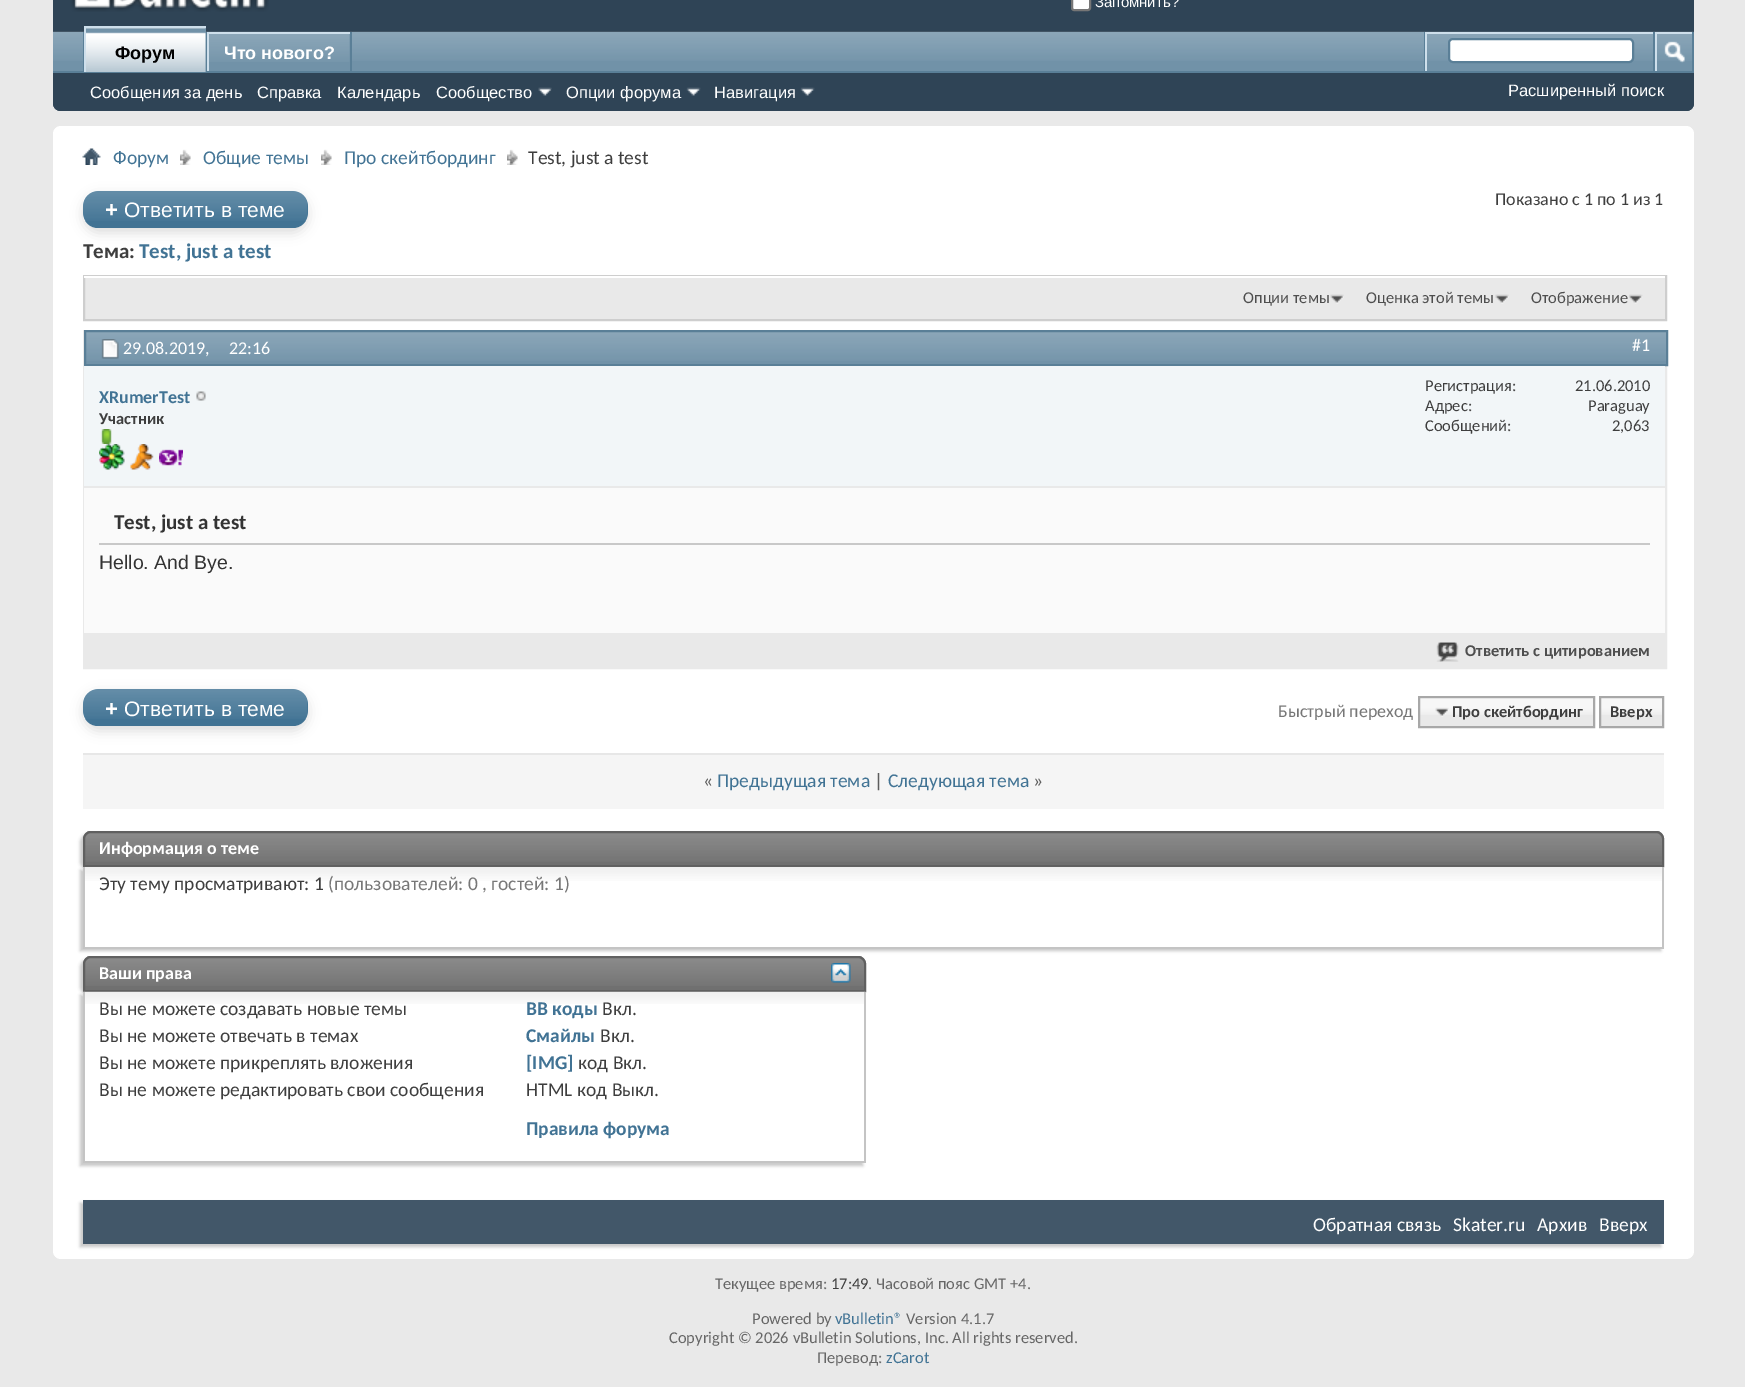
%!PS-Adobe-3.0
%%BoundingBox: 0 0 1745 1387
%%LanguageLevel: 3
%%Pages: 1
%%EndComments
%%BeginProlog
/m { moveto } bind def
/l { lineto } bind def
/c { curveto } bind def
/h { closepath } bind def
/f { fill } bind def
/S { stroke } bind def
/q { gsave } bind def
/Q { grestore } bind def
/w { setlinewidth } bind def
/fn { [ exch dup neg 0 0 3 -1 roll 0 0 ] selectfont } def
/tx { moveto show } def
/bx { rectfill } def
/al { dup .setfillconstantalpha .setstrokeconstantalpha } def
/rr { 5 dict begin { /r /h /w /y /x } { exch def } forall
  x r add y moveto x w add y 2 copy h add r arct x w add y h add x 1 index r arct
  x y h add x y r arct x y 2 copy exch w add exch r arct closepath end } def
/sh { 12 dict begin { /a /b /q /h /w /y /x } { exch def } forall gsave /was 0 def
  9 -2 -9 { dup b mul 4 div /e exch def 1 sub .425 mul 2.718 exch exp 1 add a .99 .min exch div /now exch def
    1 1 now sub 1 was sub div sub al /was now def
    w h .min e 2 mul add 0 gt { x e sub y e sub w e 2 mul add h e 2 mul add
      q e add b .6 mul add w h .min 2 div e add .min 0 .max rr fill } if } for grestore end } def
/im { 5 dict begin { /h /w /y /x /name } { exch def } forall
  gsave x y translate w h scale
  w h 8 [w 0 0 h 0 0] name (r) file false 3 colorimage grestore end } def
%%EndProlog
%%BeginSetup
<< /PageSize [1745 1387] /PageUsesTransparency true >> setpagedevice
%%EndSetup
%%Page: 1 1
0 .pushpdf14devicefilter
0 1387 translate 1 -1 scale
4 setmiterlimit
0.914 setgray
0 0 1745 1387 bx
0.184 0.267 0.337 setrgbcolor
53 -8 m 1694 -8 l 1694 103 l 1694 107.5 1690.5 111 1686 111 c 61 111 l 56.5 111 53 107.5 53 103 c h f
(image0.raw) 70 0 199 12 im
1 setgray
1072 -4 18 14 2 rr q f Q
0.463 setgray
2 w
S
/LiberationSans-Regular 15 fn
1 setgray
(Запомнить?) 1095 7 tx
0.184 0.267 0.337 setrgbcolor
53 32 m 1694 32 l 1694 103 l 1694 107.5 1690.5 111 1686 111 c 61 111 l 56.5 111 53 107.5 53 103 c h f
0.443 0.573 0.659 setrgbcolor
53 32 1639 39 bx
(image1.raw) 53 31 1641 30 im
0.353 0.498 0.592 setrgbcolor
206 32 1 39 bx
83 32 1 39 bx
350 32 2 40 bx
0.808 0.875 0.922 setrgbcolor
207 32 143 2 bx
207 32 2 40 bx
0.353 0.498 0.592 setrgbcolor
53 71 1641 2 bx
0.443 0.573 0.659 setrgbcolor
86 28 120 44 bx
(image2.raw) 86 28 120 44 im
0.808 0.875 0.922 setrgbcolor
84 26 122 2 bx
84 26 2 46 bx
/LiberationSans-Bold 18 fn
0 setgray
(Форум) 115 59 tx
/LiberationSans-Regular 16.5 fn
1 setgray
(Сообщения за день) 90 98 tx
(Справка) 257 98 tx
(Календарь) 337 98 tx
(Сообщество) 436 98 tx
(image3.raw) 538 87 14 9 im
(Опции форума) 566 98 tx
(image4.raw) 686 87 15 9 im
(Навигация) 714 98 tx
(image4.raw) 800 87 15 9 im
0.443 0.573 0.659 setrgbcolor
209 34 141 27 bx
(image5.raw) 209 34 141 28 im
/LiberationSans-Bold 18 fn
1 setgray
(Что нового?) 224 59 tx
0.353 0.498 0.592 setrgbcolor
1424 32 1 39 bx
0.808 0.875 0.922 setrgbcolor
1425 32 228 2 bx
1425 32 2 39 bx
1 setgray
1449 39 184 23 4 rr q f Q
0.353 0.498 0.592 setrgbcolor
S
1692 32 2 39 bx
1653 32 2 39 bx
0.808 0.875 0.922 setrgbcolor
1655 32 37 2 bx
1655 32 2 39 bx
(image6.raw) 1664 41 21 22 im
/LiberationSans-Regular 16.5 fn
1 setgray
(Расширенный поиск) 1508 96 tx
53 126 1641 1133 8 rr f
(image7.raw) 82 148 19 17 im
(image8.raw) 180 149 11 16 im
/Carlito-Regular 19.5 fn
0.255 0.451 0.58 setrgbcolor
(Форум) 113 164 tx
(image9.raw) 321 149 11 16 im
(Общие темы) 203 164 tx
(image10.raw) 507 149 11 16 im
(Про скейтбординг) 344 164 tx
0.243 setgray
(Test, just a test) 528 164 tx
/Carlito-Regular 18 fn
(Показано с 1 по 1 из 1) 1495 205 tx
0.867 setgray
83 195 225 38 15 6 1 sh
0.255 0.451 0.58 setrgbcolor
83 191 225 37 15 rr f
(image11.raw) 83 191 225 30 im
/LiberationSans-Bold 22 fn
1 setgray
(+) 105 217 tx
/LiberationSans-Regular 21 fn
(Ответить в теме) 124 217 tx
/Carlito-Bold 21 fn
0.243 setgray
(Тема:) 83 258 tx
0.255 0.451 0.58 setrgbcolor
(Test, just a test) 139 258 tx
0.914 setgray
85 278 1580 41 bx
0.808 setgray
84 276 1582 44 rectstroke
1 setgray
84 276 1581 2 bx
(image12.raw) 1330 294 14 10 im
/Carlito-Regular 16.5 fn
0.306 setgray
(Опции темы) 1243 303 tx
(image12.raw) 1495 294 14 10 im
(Оценка этой темы) 1366 303 tx
(image13.raw) 1629 294 14 10 im
(Отображение) 1531 303 tx
0.914 setgray
84 331 1582 337 rectstroke
0.443 0.573 0.659 setrgbcolor
86 332 1580 32 bx
(image14.raw) 86 332 1580 29 im
0.353 0.498 0.592 setrgbcolor
85 331 1582 34 rectstroke
(image15.raw) 101 339 18 20 im
/Carlito-Regular 18 fn
1 setgray
(29.08.2019,) 123 354 tx
(22:16) 229 354 tx
(#1) 1632 351 tx
0.949 0.965 0.973 setrgbcolor
84 366 1581 120 bx
0.914 setgray
84 486 1581 2 bx
/Carlito-Bold 18 fn
0.255 0.451 0.58 setrgbcolor
(XRumerTest) 99 403 tx
(image16.raw) 196 391 10 10 im
/Carlito-Bold 16.5 fn
0.243 setgray
(Участник) 99 424 tx
(image17.raw) 100 429 12 15 im
(image18.raw) 99 444 26 26 im
(image19.raw) 130 444 24 26 im
(image20.raw) 159 449 24 17 im
/Carlito-Regular 16.5 fn
(Регистрация:) 1425 391 tx
(21.06.2010) 1575 391 tx
(Адрес:) 1425 411 tx
(Paraguay) 1588 411 tx
(Сообщений:) 1425 431 tx
(2,063) 1612 431 tx
0.98 setgray
84 488 1581 145 bx
0.784 setgray
99 543 1551 2 bx
/Carlito-Bold 21 fn
0.2 setgray
(Test, just a test) 114 529 tx
/LiberationSans-Regular 19.5 fn
(Hello. And Bye.) 99 569 tx
0.914 setgray
85 633 1580 34 bx
(image21.raw) 1436 642 23 20 im
/Carlito-Bold 16.5 fn
0.306 setgray
(Ответить с цитированием) 1465 656 tx
0.867 setgray
83 693 225 38 15 6 1 sh
0.255 0.451 0.58 setrgbcolor
83 689 225 37 15 rr f
(image22.raw) 83 689 225 30 im
/LiberationSans-Bold 22 fn
1 setgray
(+) 105 716 tx
/LiberationSans-Regular 21 fn
(Ответить в теме) 124 716 tx
/Carlito-Regular 18 fn
0.467 setgray
(Быстрый переход) 1278 717 tx
0.914 setgray
1420 698 173 28 bx
(image23.raw) 1420 698 173 17 im
1601 698 61 28 bx
(image24.raw) 1601 698 61 17 im
0.659 setgray
1419 697 175 30 rectstroke
(image25.raw) 1435 707 14 10 im
/Carlito-Bold 16.5 fn
0.243 setgray
(Про скейтбординг) 1452 717 tx
0.659 setgray
1600 697 63 30 rectstroke
0.243 setgray
(Вверх) 1610 717 tx
0.961 setgray
83 755 1581 54 bx
0.906 setgray
83 753 1581 2 bx
/Carlito-Regular 19.5 fn
0.365 setgray
(«) 703 787 tx
0.255 0.451 0.58 setrgbcolor
(Предыдущая тема) 717 787 tx
0.365 setgray
(|) 874 787 tx
0.255 0.451 0.58 setrgbcolor
(Следующая тема) 888 787 tx
0.365 setgray
(») 1033 787 tx
0.784 setgray
80 834 1581 36 8 1.5 1 sh
0.439 setgray
91 831 m 1656 831 l 1660.5 831 1664 834.5 1664 839 c 1664 867 l 83 867 l 83 839 l 83 834.5 86.5 831 91 831 c h f
(image26.raw) 83 832 1581 30 im
0.376 setgray
91 832 m 1656 832 l 1660 832 1663 835 1663 839 c 1663 866 l 84 866 l 84 839 l 84 835 87 832 91 832 c h S
/Carlito-Bold 18 fn
1 setgray
(Информация о теме) 99 854 tx
0.784 setgray
80 870 1581 81 0 1.5 1 sh
1 setgray
85 867 1577 80 bx
(image27.raw) 85 867 1577 14 im
0.769 setgray
1662 867 2 81 bx
83 947 1581 2 bx
83 867 2 81 bx
/Carlito-Regular 19.5 fn
0.243 setgray
(Эту тему просматривают: 1) 99 890 tx
0.467 setgray
(\(пользователей: 0 , гостей: 1\)) 328 890 tx
0.784 setgray
80 959 783 36 8 1.5 1 sh
0.439 setgray
91 956 m 858 956 l 862.5 956 866 959.5 866 964 c 866 992 l 83 992 l 83 964 l 83 959.5 86.5 956 91 956 c h f
(image28.raw) 83 957 783 29 im
0.376 setgray
91 957 m 858 957 l 862 957 865 960 865 964 c 865 991 l 84 991 l 84 964 l 84 960 87 957 91 957 c h S
/Carlito-Bold 18 fn
1 setgray
(Ваши права) 99 979 tx
(image29.raw) 831 963 20 20 im
0.784 setgray
80 995 783 171 0 1.5 1 sh
1 setgray
85 992 779 169 bx
(image30.raw) 83 991 783 13 im
0.769 setgray
864 992 2 171 bx
83 1161 783 2 bx
83 992 2 171 bx
/Carlito-Regular 19.5 fn
0.243 setgray
(Вы не можете создавать новые темы) 99 1015 tx
(Вы не можете отвечать в темах) 99 1042 tx
(Вы не можете прикреплять вложения) 99 1069 tx
(Вы не можете редактировать свои сообщения) 99 1096 tx
/Carlito-Bold 19.5 fn
0.255 0.451 0.58 setrgbcolor
(BB коды) 526 1015 tx
/Carlito-Regular 19.5 fn
0.243 setgray
(Вкл.) 602 1015 tx
/Carlito-Bold 19.5 fn
0.255 0.451 0.58 setrgbcolor
(Смайлы) 526 1042 tx
/Carlito-Regular 19.5 fn
0.243 setgray
(Вкл.) 600 1042 tx
/Carlito-Bold 19.5 fn
0.255 0.451 0.58 setrgbcolor
([IMG]) 526 1069 tx
/Carlito-Regular 19.5 fn
0.243 setgray
(код Вкл.) 578 1069 tx
(HTML код Выкл.) 526 1096 tx
/Carlito-Bold 19.5 fn
0.255 0.451 0.58 setrgbcolor
(Правила форума) 526 1135 tx
0.784 setgray
80 1203 1581 44 0 1.5 1 sh
0.259 0.341 0.412 setrgbcolor
83 1200 1581 44 bx
/Carlito-Regular 19.5 fn
1 setgray
(Обратная связь) 1313 1231 tx
(Skater.ru) 1453 1231 tx
(Архив) 1537 1231 tx
(Вверх) 1599 1231 tx
/Carlito-Regular 16.5 fn
0.4 setgray
(Текущее время:) 715 1289 tx
0.243 setgray
(17:49) 831 1289 tx
0.4 setgray
(. Часовой пояс GMT +4.) 868 1289 tx
(Powered by) 752 1324 tx
0.255 0.451 0.58 setrgbcolor
(vBulletin®) 835 1324 tx
0.4 setgray
(Version 4.1.7) 906 1324 tx
(Copyright © 2026 vBulletin Solutions, Inc. All rights reserved.) 669 1343 tx
(Перевод:) 817 1363 tx
0.255 0.451 0.58 setrgbcolor
(zCarot) 886 1363 tx
.poppdf14devicefilter showpage
%%EOF
